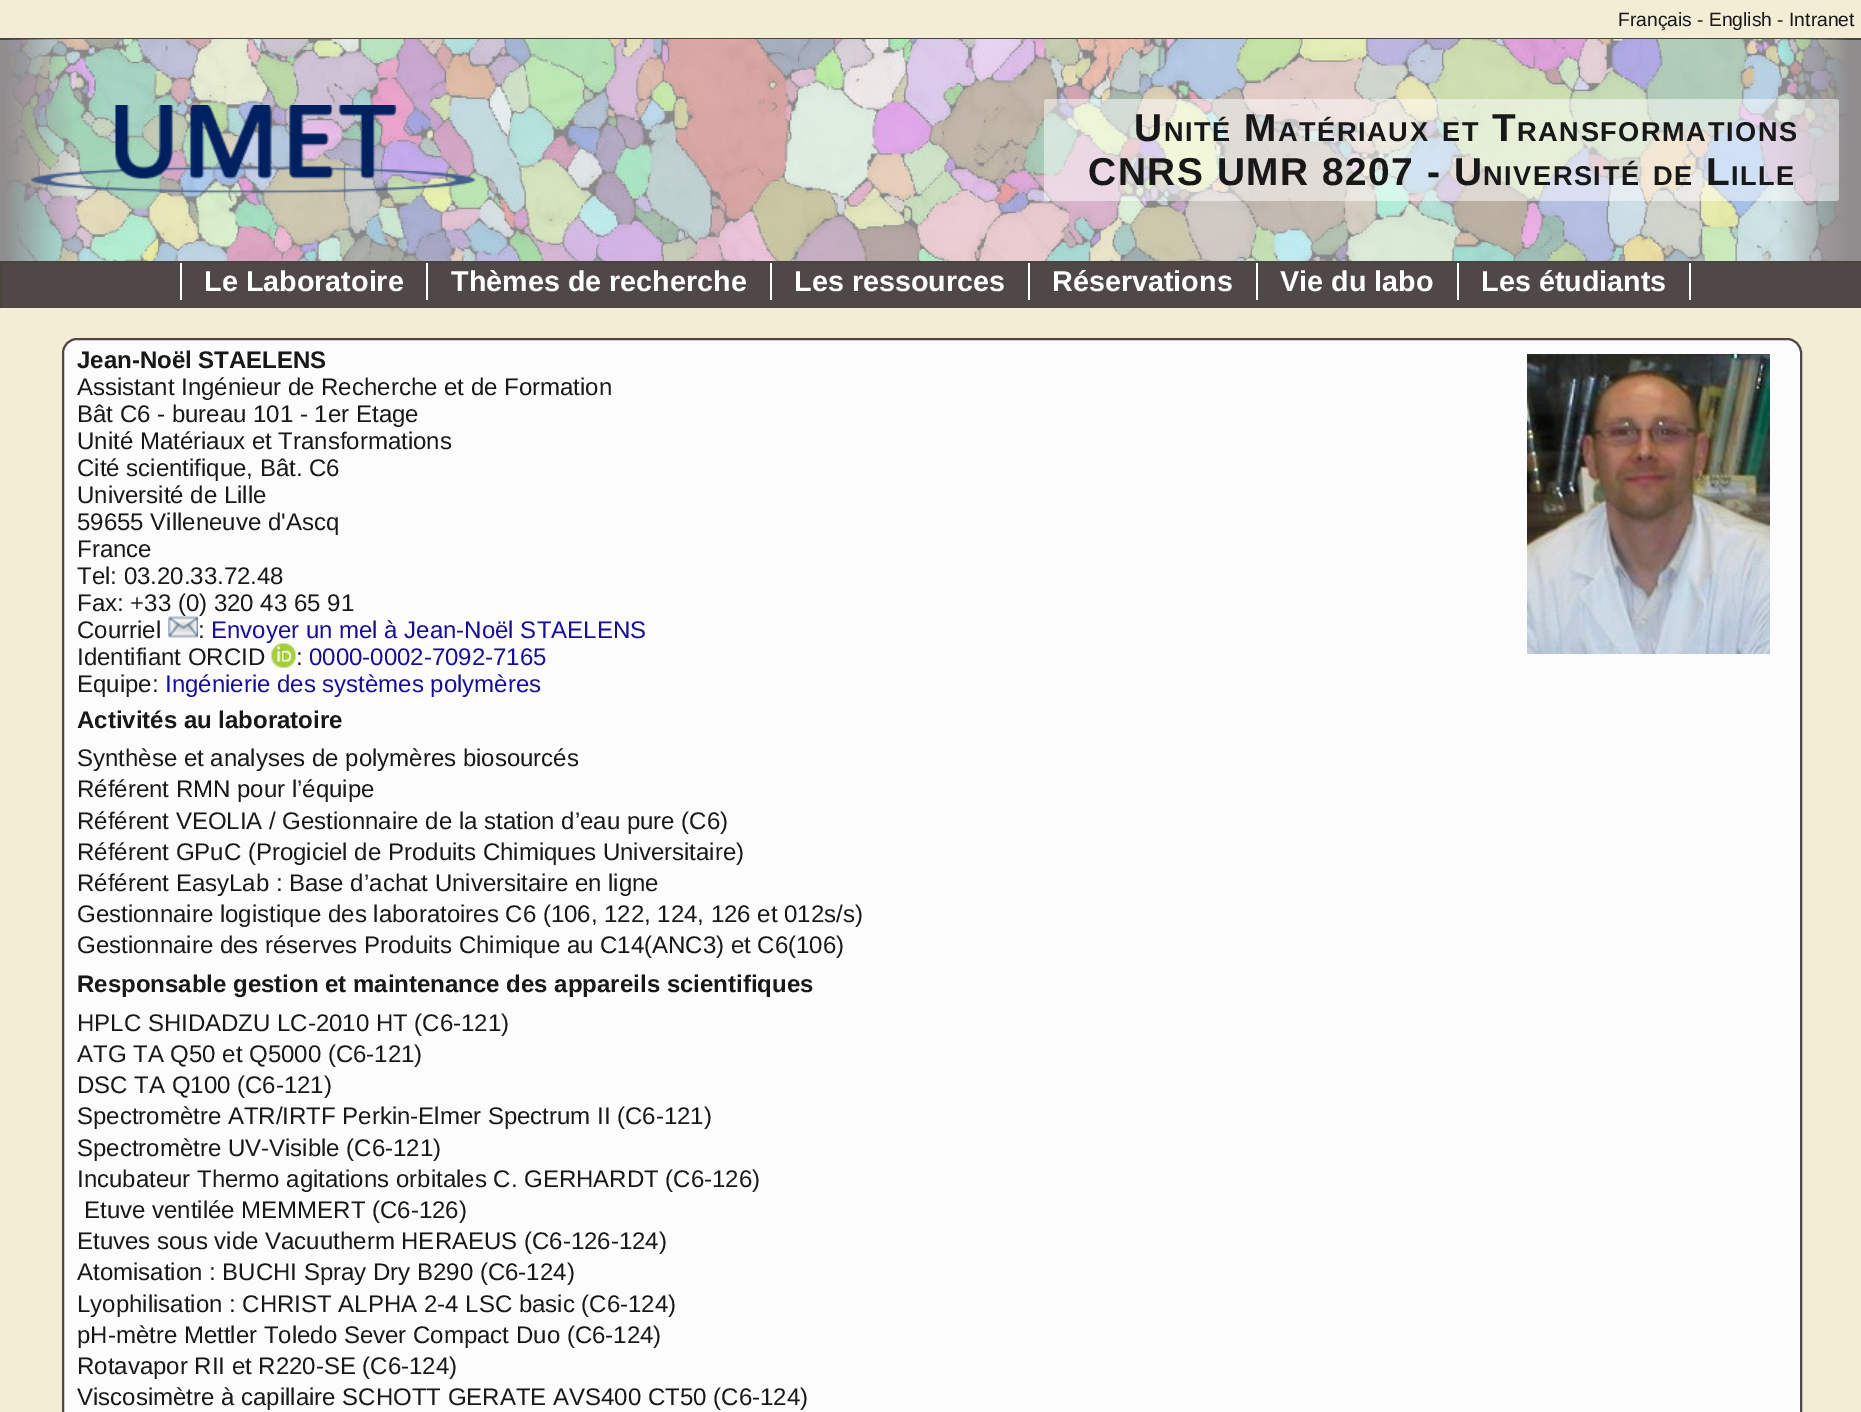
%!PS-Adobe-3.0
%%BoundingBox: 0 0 1861 1412
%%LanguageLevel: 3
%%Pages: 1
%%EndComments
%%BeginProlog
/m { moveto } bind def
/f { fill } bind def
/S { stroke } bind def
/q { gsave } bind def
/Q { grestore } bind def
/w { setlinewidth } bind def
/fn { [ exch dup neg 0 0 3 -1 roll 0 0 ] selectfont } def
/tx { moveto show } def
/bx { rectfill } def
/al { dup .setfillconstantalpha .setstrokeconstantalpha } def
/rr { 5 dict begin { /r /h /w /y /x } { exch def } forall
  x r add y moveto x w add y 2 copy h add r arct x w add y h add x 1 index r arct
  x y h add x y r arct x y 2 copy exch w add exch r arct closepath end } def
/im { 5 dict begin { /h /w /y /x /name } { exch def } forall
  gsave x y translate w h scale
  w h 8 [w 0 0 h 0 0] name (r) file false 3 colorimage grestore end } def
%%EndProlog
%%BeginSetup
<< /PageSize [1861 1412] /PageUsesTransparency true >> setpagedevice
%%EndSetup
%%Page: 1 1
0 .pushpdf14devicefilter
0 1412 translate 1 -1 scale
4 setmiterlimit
0.953 0.929 0.835 setrgbcolor
0 0 1861 1412 bx
/LiberationSans-Regular 19.25 fn
0.094 setgray
(Français - English - Intranet) 1618 26 tx
0.561 0.553 0.553 setrgbcolor
0 40 1861 221 bx
0.278 0.271 0.243 setrgbcolor
0 38 1861 2 bx
(image0.raw) 6 39 1842 222 im
0 261 1861 2 bx
(image1.raw) 30 105 446 89 im
0.5 al
1 setgray
1044 99 795 102 3 rr f
/LiberationSans-Bold 38.9 fn
1 al
0.094 setgray
1134 141 m 1.5 0 (U) ashow
/LiberationSans-Bold 27.25 fn
1164 141 m 1.5 0 (NITÉ) ashow
/LiberationSans-Bold 38.9 fn
1244 141 m 1.5 0 (M) ashow
/LiberationSans-Bold 27.25 fn
1278 141 m 1.5 0 (ATÉRIAUX) ashow
1442 141 m 1.5 0 (ET) ashow
/LiberationSans-Bold 38.9 fn
1492 141 m 1.5 0 (T) ashow
/LiberationSans-Bold 27.25 fn
1517 141 m 1.5 0 (RANSFORMATIONS) ashow
/LiberationSans-Bold 38.9 fn
1088 185 m 1.5 0 (CNRS UMR 8207 - U) ashow
/LiberationSans-Bold 27.25 fn
1483 185 m 1.5 0 (NIVERSITÉ) ashow
1653 185 m 1.5 0 (DE) ashow
/LiberationSans-Bold 38.9 fn
1706 185 m 1.5 0 (L) ashow
/LiberationSans-Bold 27.25 fn
1731 185 m 1.5 0 (ILLE) ashow
0.314 0.282 0.282 setrgbcolor
2 263 1859 45 bx
0.278 0.271 0.243 setrgbcolor
0 263 2 45 bx
1 setgray
426 263 2 37 bx
180 263 2 37 bx
/LiberationSans-Bold 28.75 fn
(Le Laboratoire) 204 291 tx
770 263 2 37 bx
(Thèmes de recherche) 451 291 tx
1028 263 2 37 bx
(Les ressources) 794 291 tx
1256 263 2 37 bx
(Réservations) 1052 291 tx
1457 263 2 37 bx
(Vie du labo) 1280 291 tx
1689 263 2 37 bx
(Les étudiants) 1481 291 tx
0.988 setgray
63 339 1738 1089 14 rr q f Q
0.314 0.282 0.282 setrgbcolor
2 w
S
/LiberationSans-Bold 24 fn
0.094 setgray
(Jean-Noël STAELENS) 77 368 tx
(image2.raw) 1527 354 243 300 im
/LiberationSans-Regular 24 fn
(Assistant Ingénieur de Recherche et de Formation) 77 395 tx
(Bât C6 - bureau 101 - 1er Etage) 77 422 tx
(Unité Matériaux et Transformations) 77 449 tx
(Cité scientifique, Bât. C6) 77 476 tx
(Université de Lille) 77 503 tx
(59655 Villeneuve d'Ascq) 77 530 tx
(France) 77 557 tx
(Tel: 03.20.33.72.48) 77 584 tx
(Fax: +33 \(0\) 320 43 65 91) 77 611 tx
(Courriel) 77 638 tx
(image3.raw) 168 616 30 22 im
(:) 198 638 tx
0.086 0.059 0.588 setrgbcolor
(Envoyer un mel à Jean-Noël STAELENS) 211 638 tx
0.094 setgray
(Identifiant ORCID) 77 665 tx
(image4.raw) 271 643 25 25 im
(:) 296 665 tx
0.086 0.059 0.588 setrgbcolor
(0000-0002-7092-7165) 309 665 tx
0.094 setgray
(Equipe:) 77 692 tx
0.086 0.059 0.588 setrgbcolor
(Ingénierie des systèmes polymères) 165 692 tx
/LiberationSans-Bold 24 fn
0.094 setgray
(Activités au laboratoire) 77 728 tx
/LiberationSans-Regular 24 fn
(Synthèse et analyses de polymères biosourcés) 77 766 tx
(Référent RMN pour l’équipe) 77 797 tx
(Référent VEOLIA / Gestionnaire de la station d’eau pure \(C6\)) 77 829 tx
(Référent GPuC \(Progiciel de Produits Chimiques Universitaire\)) 77 860 tx
(Référent EasyLab : Base d’achat Universitaire en ligne) 77 891 tx
(Gestionnaire logistique des laboratoires C6 \(106, 122, 124, 126 et 012s/s\)) 77 922 tx
(Gestionnaire des réserves Produits Chimique au C14\(ANC3\) et C6\(106\)) 77 953 tx
/LiberationSans-Bold 24 fn
(Responsable gestion et maintenance des appareils scientifiques) 77 992 tx
/LiberationSans-Regular 24 fn
(HPLC SHIDADZU LC-2010 HT \(C6-121\)) 77 1031 tx
(ATG TA Q50 et Q5000 \(C6-121\)) 77 1062 tx
(DSC TA Q100 \(C6-121\)) 77 1093 tx
(Spectromètre ATR/IRTF Perkin-Elmer Spectrum II \(C6-121\)) 77 1124 tx
(Spectromètre UV-Visible \(C6-121\)) 77 1156 tx
(Incubateur Thermo agitations orbitales C. GERHARDT \(C6-126\)) 77 1187 tx
(Etuve ventilée MEMMERT \(C6-126\)) 84 1218 tx
(Etuves sous vide Vacuutherm HERAEUS \(C6-126-124\)) 77 1249 tx
(Atomisation : BUCHI Spray Dry B290 \(C6-124\)) 77 1280 tx
(Lyophilisation : CHRIST ALPHA 2-4 LSC basic \(C6-124\)) 77 1312 tx
(pH-mètre Mettler Toledo Sever Compact Duo \(C6-124\)) 77 1343 tx
(Rotavapor RII et R220-SE \(C6-124\)) 77 1374 tx
(Viscosimètre à capillaire SCHOTT GERATE AVS400 CT50 \(C6-124\)) 77 1405 tx
.poppdf14devicefilter showpage
%%EOF
